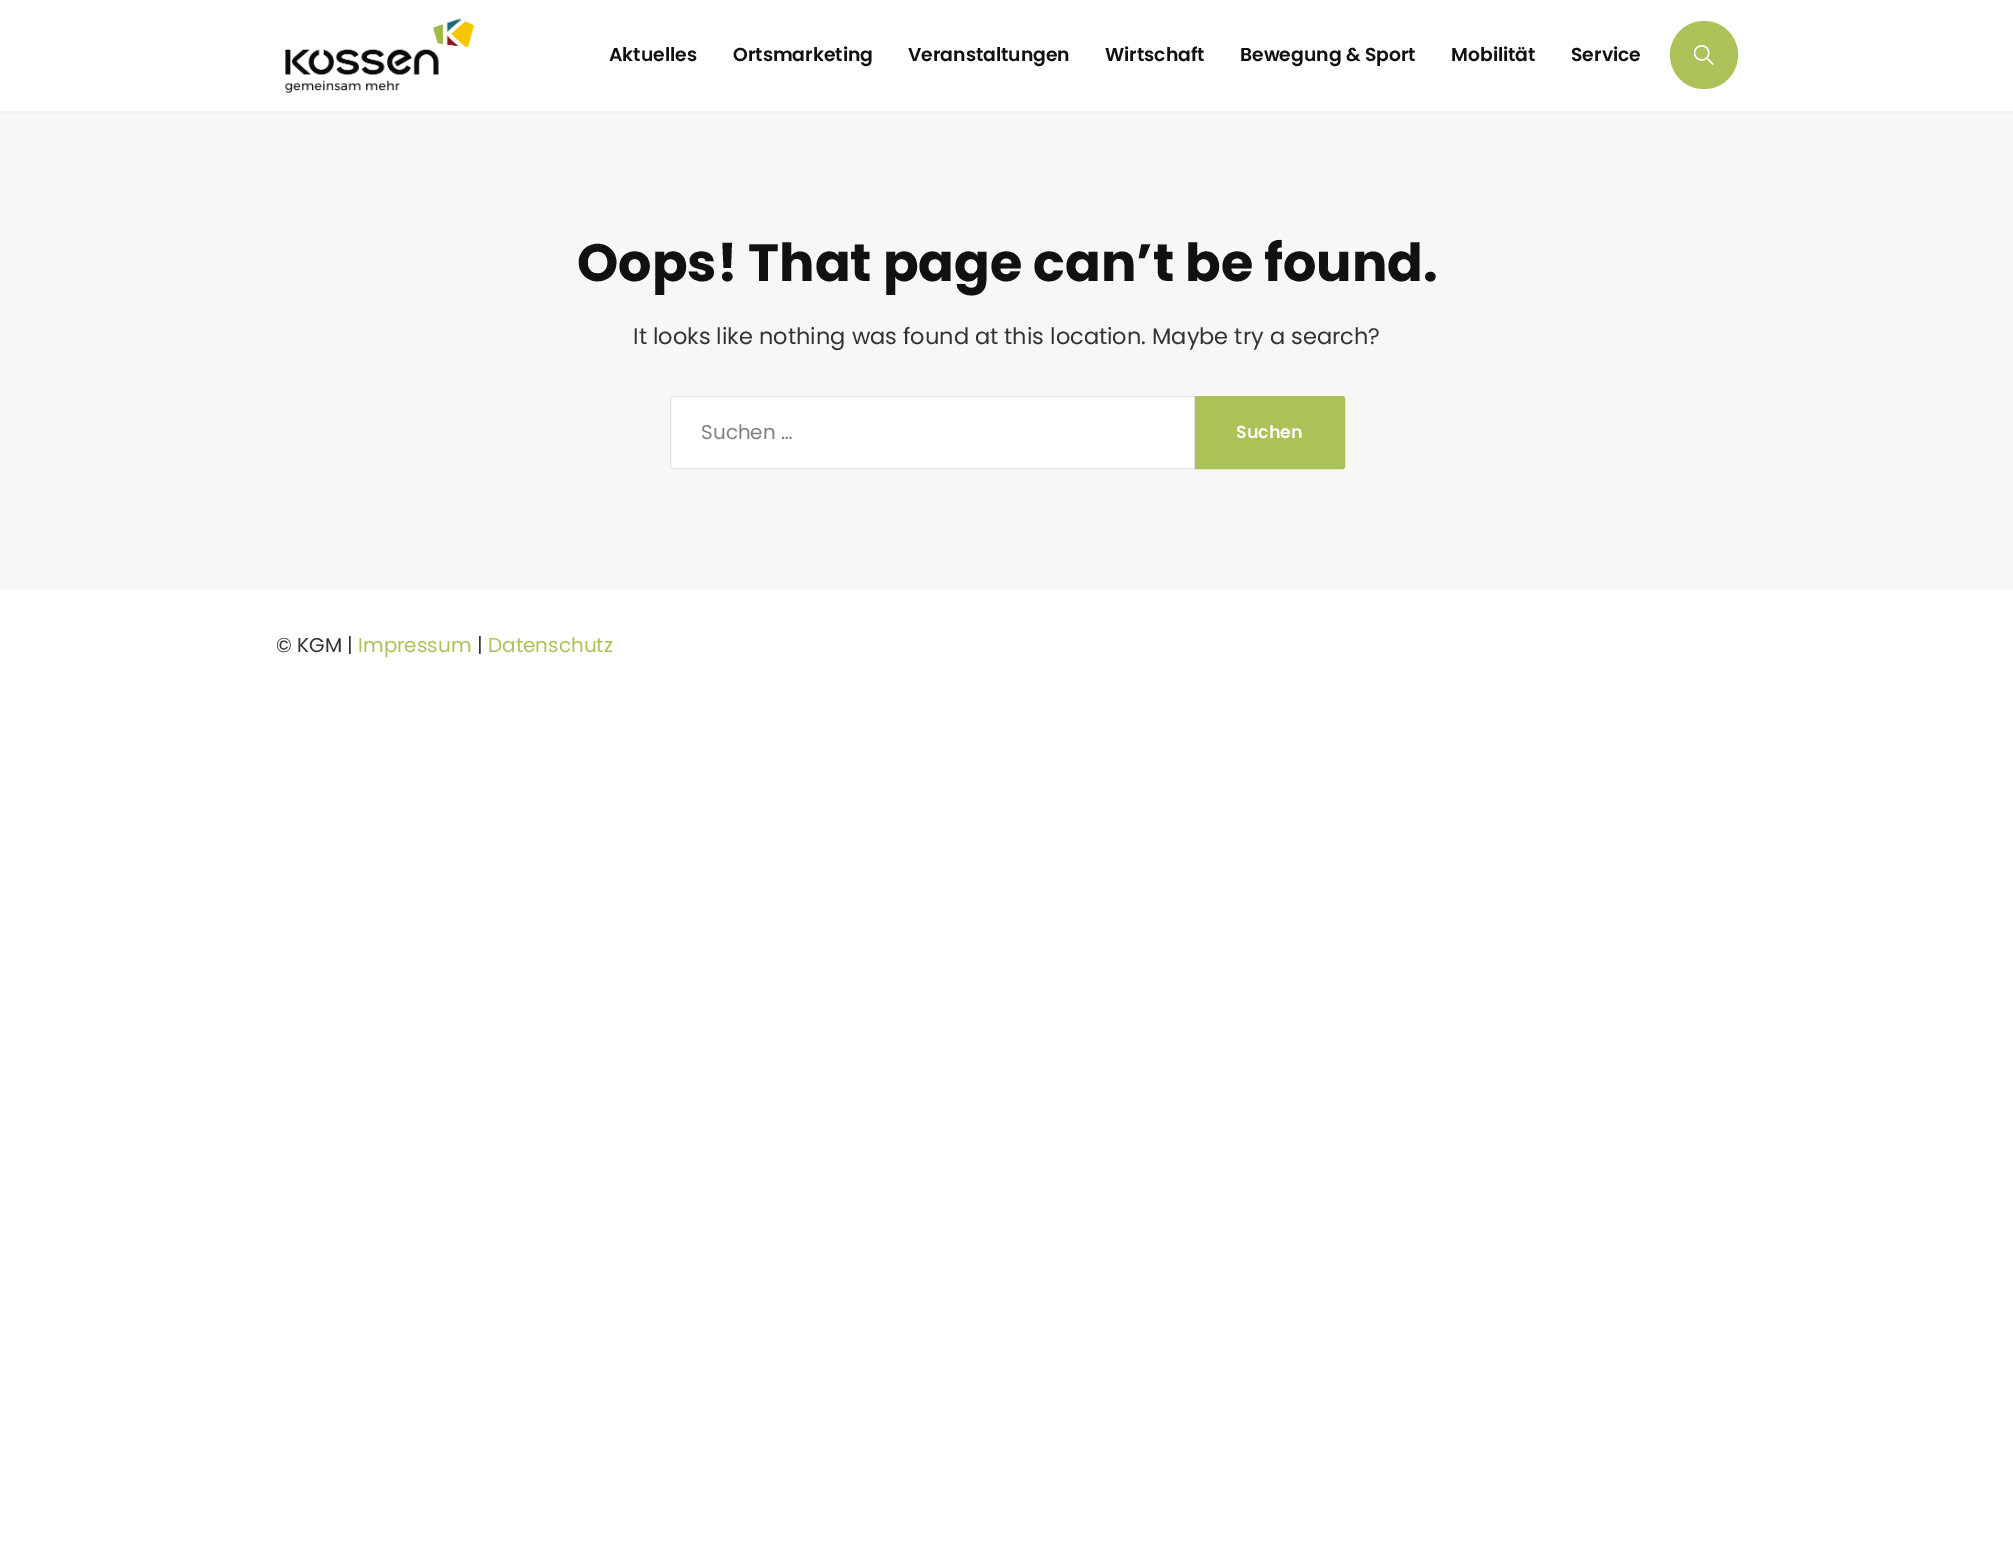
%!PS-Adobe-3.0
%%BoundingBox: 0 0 2013 1564
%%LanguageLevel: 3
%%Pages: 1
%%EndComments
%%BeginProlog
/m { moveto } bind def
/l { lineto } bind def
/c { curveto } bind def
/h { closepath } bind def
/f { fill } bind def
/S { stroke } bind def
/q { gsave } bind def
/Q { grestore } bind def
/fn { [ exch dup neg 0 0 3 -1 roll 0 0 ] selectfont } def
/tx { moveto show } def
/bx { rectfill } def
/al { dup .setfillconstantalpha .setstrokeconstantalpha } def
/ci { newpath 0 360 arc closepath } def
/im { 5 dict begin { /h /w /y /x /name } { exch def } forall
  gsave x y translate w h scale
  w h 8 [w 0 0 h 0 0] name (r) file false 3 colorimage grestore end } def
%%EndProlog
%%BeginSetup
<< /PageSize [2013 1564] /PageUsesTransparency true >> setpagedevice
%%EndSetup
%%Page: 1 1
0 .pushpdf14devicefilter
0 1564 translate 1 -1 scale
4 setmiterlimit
1 setgray
0 0 2013 1564 bx
0.949 setgray
0 111 m 0 113 l 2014 113 l 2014 1 l 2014 111 l h f
(image0.raw) 285 18 190 75 im
/Poppins-SemiBold 18.75 fn
0.067 setgray
(Aktuelles) 609 61 tx
(Ortsmarketing) 733 61 tx
(Veranstaltungen) 908 61 tx
(Wirtschaft) 1105 61 tx
(Bewegung & Sport) 1240 61 tx
(Mobilität) 1451 61 tx
(Service) 1571 61 tx
0.675 0.757 0.341 setrgbcolor
1704 55 34 ci f
(image1.raw) 1694 45 20 20 im
0.973 0.969 0.961 setrgbcolor
0 113 2013 476 bx
/Poppins-Bold 52.5 fn
0.067 setgray
(Oops! That page can’t be found.) 577 281 tx
/Poppins-Regular 22.5 fn
0.2 setgray
(It looks like nothing was found at this location. Maybe try a search?) 633 344 tx
1 setgray
672.5 396 m 1195 396 l 1195 469 l 672.5 469 l 671 469 670 468 670 466.5 c 670 398.5 l 670 397 671 396 672.5 396 c h f
0.1 al
0 setgray
672.5 396.5 m 1194.5 396.5 l 1194.5 468.5 l 672.5 468.5 l 671.5 468.5 670.5 467.5 670.5 466.5 c 670.5 398.5 l 670.5 397.5 671.5 396.5 672.5 396.5 c h S
/Poppins-Regular 20 fn
1 al
0.502 setgray
(Suchen …) 701 439 tx
0.675 0.757 0.341 setrgbcolor
1195.5 396.5 m 1342.5 396.5 l 1343.5 396.5 1344.5 397.5 1344.5 398.5 c 1344.5 466.5 l 1344.5 467.5 1343.5 468.5 1342.5 468.5 c 1195.5 468.5 l h q f Q
S
/Poppins-SemiBold 17.5 fn
1 setgray
(Suchen) 1236 438 tx
/Poppins-Regular 20 fn
0.2 setgray
(© KGM |) 276 652 tx
0.675 0.757 0.341 setrgbcolor
(Impressum) 358 652 tx
0.2 setgray
(|) 477 652 tx
0.675 0.757 0.341 setrgbcolor
(Datenschutz) 488 652 tx
.poppdf14devicefilter showpage
%%EOF
